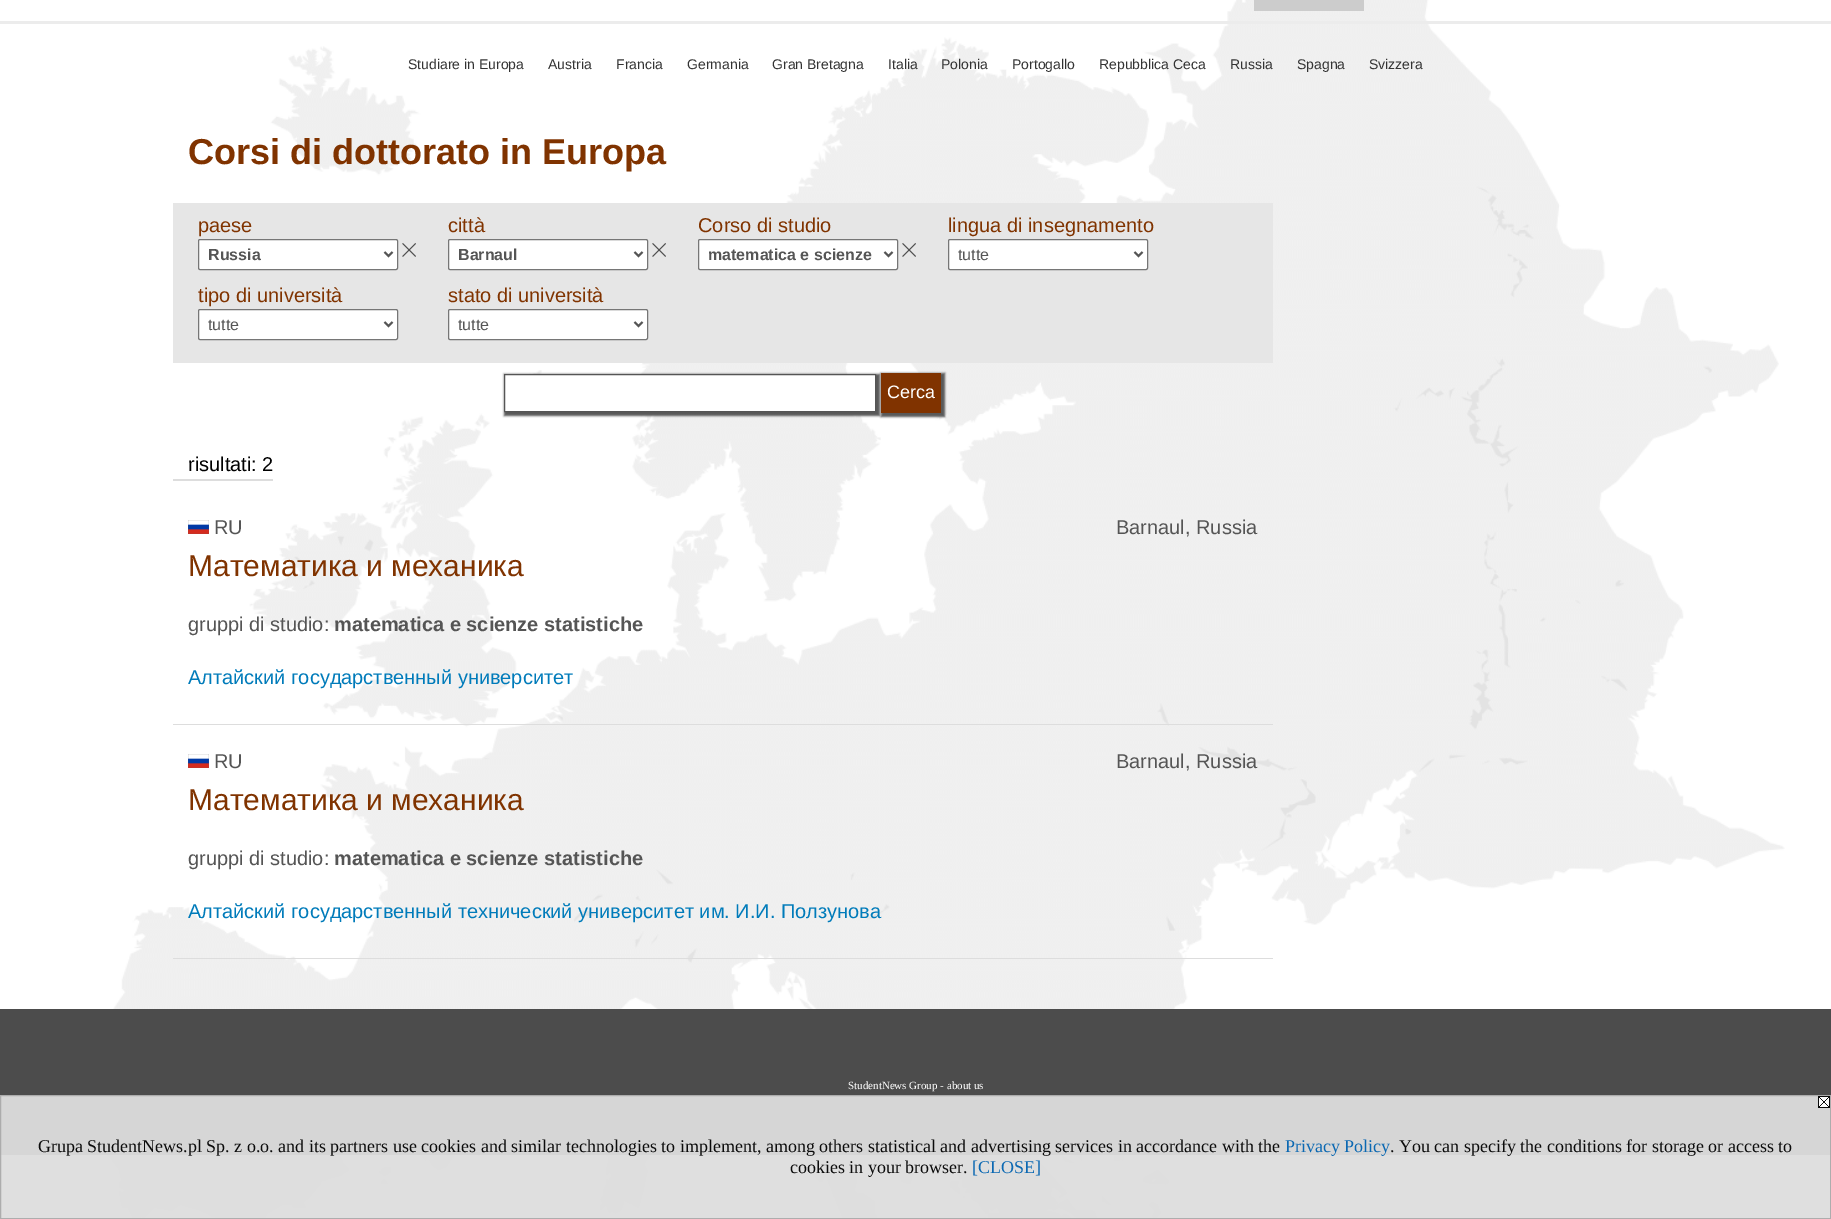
%!PS-Adobe-3.0
%%BoundingBox: 0 0 1831 1219
%%LanguageLevel: 3
%%Pages: 1
%%EndComments
%%BeginProlog
/m { moveto } bind def
/l { lineto } bind def
/h { closepath } bind def
/f { fill } bind def
/S { stroke } bind def
/q { gsave } bind def
/Q { grestore } bind def
/w { setlinewidth } bind def
/fn { [ exch dup neg 0 0 3 -1 roll 0 0 ] selectfont } def
/tx { moveto show } def
/bx { rectfill } def
/al { dup .setfillconstantalpha .setstrokeconstantalpha } def
/rr { 5 dict begin { /r /h /w /y /x } { exch def } forall
  x r add y moveto x w add y 2 copy h add r arct x w add y h add x 1 index r arct
  x y h add x y r arct x y 2 copy exch w add exch r arct closepath end } def
/sh { 12 dict begin { /a /b /q /h /w /y /x } { exch def } forall gsave /was 0 def
  9 -2 -9 { dup b mul 4 div /e exch def 1 sub .425 mul 2.718 exch exp 1 add a .99 .min exch div /now exch def
    1 1 now sub 1 was sub div sub al /was now def
    w h .min e 2 mul add 0 gt { x e sub y e sub w e 2 mul add h e 2 mul add
      q e add b .6 mul add w h .min 2 div e add .min 0 .max rr fill } if } for grestore end } def
/im { 5 dict begin { /h /w /y /x /name } { exch def } forall
  gsave x y translate w h scale
  w h 8 [w 0 0 h 0 0] name (r) file false 3 colorimage grestore end } def
%%EndProlog
%%BeginSetup
<< /PageSize [1831 1219] /PageUsesTransparency true >> setpagedevice
%%EndSetup
%%Page: 1 1
0 .pushpdf14devicefilter
0 1219 translate 1 -1 scale
4 setmiterlimit
1 setgray
0 0 1831 1219 bx
(image0.raw) 46 0 1739 1219 im
0.8 setgray
1254 0 110 11 bx
0.925 setgray
0 21 1831 3 bx
/LiberationSans-Regular 14 fn
0.2 setgray
(Studiare in Europa) 408 69 tx
(Austria) 548 69 tx
(Francia) 616 69 tx
(Germania) 687 69 tx
(Gran Bretagna) 772 69 tx
(Italia) 888 69 tx
(Polonia) 941 69 tx
(Portogallo) 1012 69 tx
(Repubblica Ceca) 1099 69 tx
(Russia) 1230 69 tx
(Spagna) 1297 69 tx
(Svizzera) 1369 69 tx
/LiberationSans-Bold 36 fn
0.502 0.2 0 setrgbcolor
(Corsi di dottorato in Europa) 188 164 tx
0.902 setgray
173 203 1100 160 bx
/LiberationSans-Regular 20 fn
0.502 0.2 0 setrgbcolor
(paese) 198 232 tx
1 setgray
198.5 239.5 199 30 1.5 rr q f Q
0.463 setgray
S
0.333 setgray
2 w
384.5 252 m 388.5 256 l 392.5 252 l S
/LiberationSans-Bold 16 fn
(Russia) 208 260 tx
(image1.raw) 402 243 14 14 im
/LiberationSans-Regular 20 fn
0.502 0.2 0 setrgbcolor
(città) 448 232 tx
1 setgray
448.5 239.5 199 30 1.5 rr q f Q
0.463 setgray
1 w
S
0.333 setgray
2 w
634.5 252 m 638.5 256 l 642.5 252 l S
/LiberationSans-Bold 16 fn
(Barnaul) 458 260 tx
(image1.raw) 652 243 14 14 im
/LiberationSans-Regular 20 fn
0.502 0.2 0 setrgbcolor
(Corso di studio) 698 232 tx
1 setgray
698.5 239.5 199 30 1.5 rr q f Q
0.463 setgray
1 w
S
0.333 setgray
2 w
884.5 252 m 888.5 256 l 892.5 252 l S
/LiberationSans-Bold 16 fn
(matematica e scienze) 708 260 tx
(image1.raw) 902 243 14 14 im
/LiberationSans-Regular 20 fn
0.502 0.2 0 setrgbcolor
(lingua di insegnamento) 948 232 tx
1 setgray
948.5 239.5 199 30 1.5 rr q f Q
0.463 setgray
1 w
S
0.333 setgray
2 w
1134.5 252 m 1138.5 256 l 1142.5 252 l S
/LiberationSans-Regular 16 fn
(tutte) 958 260 tx
/LiberationSans-Regular 20 fn
0.502 0.2 0 setrgbcolor
(tipo di università) 198 302 tx
1 setgray
198.5 309.5 199 30 1.5 rr q f Q
0.463 setgray
1 w
S
0.333 setgray
2 w
384.5 322 m 388.5 326 l 392.5 322 l S
/LiberationSans-Regular 16 fn
(tutte) 208 330 tx
/LiberationSans-Regular 20 fn
0.502 0.2 0 setrgbcolor
(stato di università) 448 302 tx
1 setgray
448.5 309.5 199 30 1.5 rr q f Q
0.463 setgray
1 w
S
0.333 setgray
2 w
634.5 322 m 638.5 326 l 642.5 322 l S
/LiberationSans-Regular 16 fn
(tutte) 458 330 tx
504 374 376 42 0 1 1 sh
1 setgray
504.5 374.5 m 875.5 374.5 l 875.5 411.5 l 504.5 411.5 l h q f Q
0.333 setgray
1 w
S
881 373 64 44 0 1 1 sh
0.502 0.2 0 setrgbcolor
881 373 60 40 bx
/LiberationSans-Regular 18 fn
1 setgray
(Cerca) 887 398 tx
0.867 setgray
173 479 100 2 bx
/LiberationSans-Regular 20 fn
0 setgray
(risultati: 2) 188 471 tx
0.867 setgray
173 724 1100 1 bx
(image2.raw) 188 520 21 14 im
0.333 setgray
(RU) 214 534 tx
(Barnaul, Russia) 1116 534 tx
/LiberationSans-Regular 30 fn
0.502 0.2 0 setrgbcolor
(Математика и механика) 188 576 tx
/LiberationSans-Regular 20 fn
0.333 setgray
(gruppi di studio:) 188 631 tx
/LiberationSans-Bold 20 fn
(matematica e scienze statistiche) 334 631 tx
/LiberationSans-Regular 20 fn
0 0.482 0.729 setrgbcolor
(Алтайский государственный университет) 188 684 tx
0.867 setgray
173 958 1100 1 bx
(image2.raw) 188 754 21 14 im
0.333 setgray
(RU) 214 768 tx
(Barnaul, Russia) 1116 768 tx
/LiberationSans-Regular 30 fn
0.502 0.2 0 setrgbcolor
(Математика и механика) 188 810 tx
/LiberationSans-Regular 20 fn
0.333 setgray
(gruppi di studio:) 188 865 tx
/LiberationSans-Bold 20 fn
(matematica e scienze statistiche) 334 865 tx
/LiberationSans-Regular 20 fn
0 0.482 0.729 setrgbcolor
(Алтайский государственный технический университет им. И.И. Ползунова) 188 918 tx
0.298 setgray
0 1009 1831 146 bx
/LiberationSerif-Regular 11 fn
1 setgray
(StudentNews Group - about us) 848 1089 tx
0.95 al
0.867 setgray
0 1095 1831 124 bx
0.667 setgray
0.5 1095.5 1830 123 rectstroke
1 al
(image3.raw) 1818 1096 12 12 im
/LiberationSerif-Regular 18 fn
0.043 setgray
(Grupa StudentNews.pl Sp. z o.o. and its partners use cookies and similar technologies to implement, among others statistical and advertising services in accordance with the) 38 1152 tx
0.043 0.408 0.698 setrgbcolor
(Privacy Policy) 1285 1152 tx
0.043 setgray
(. You can specify the conditions for storage or access to) 1390 1152 tx
(cookies in your browser.) 790 1173 tx
0.043 0.408 0.698 setrgbcolor
([CLOSE]) 972 1173 tx
.poppdf14devicefilter showpage
%%EOF
